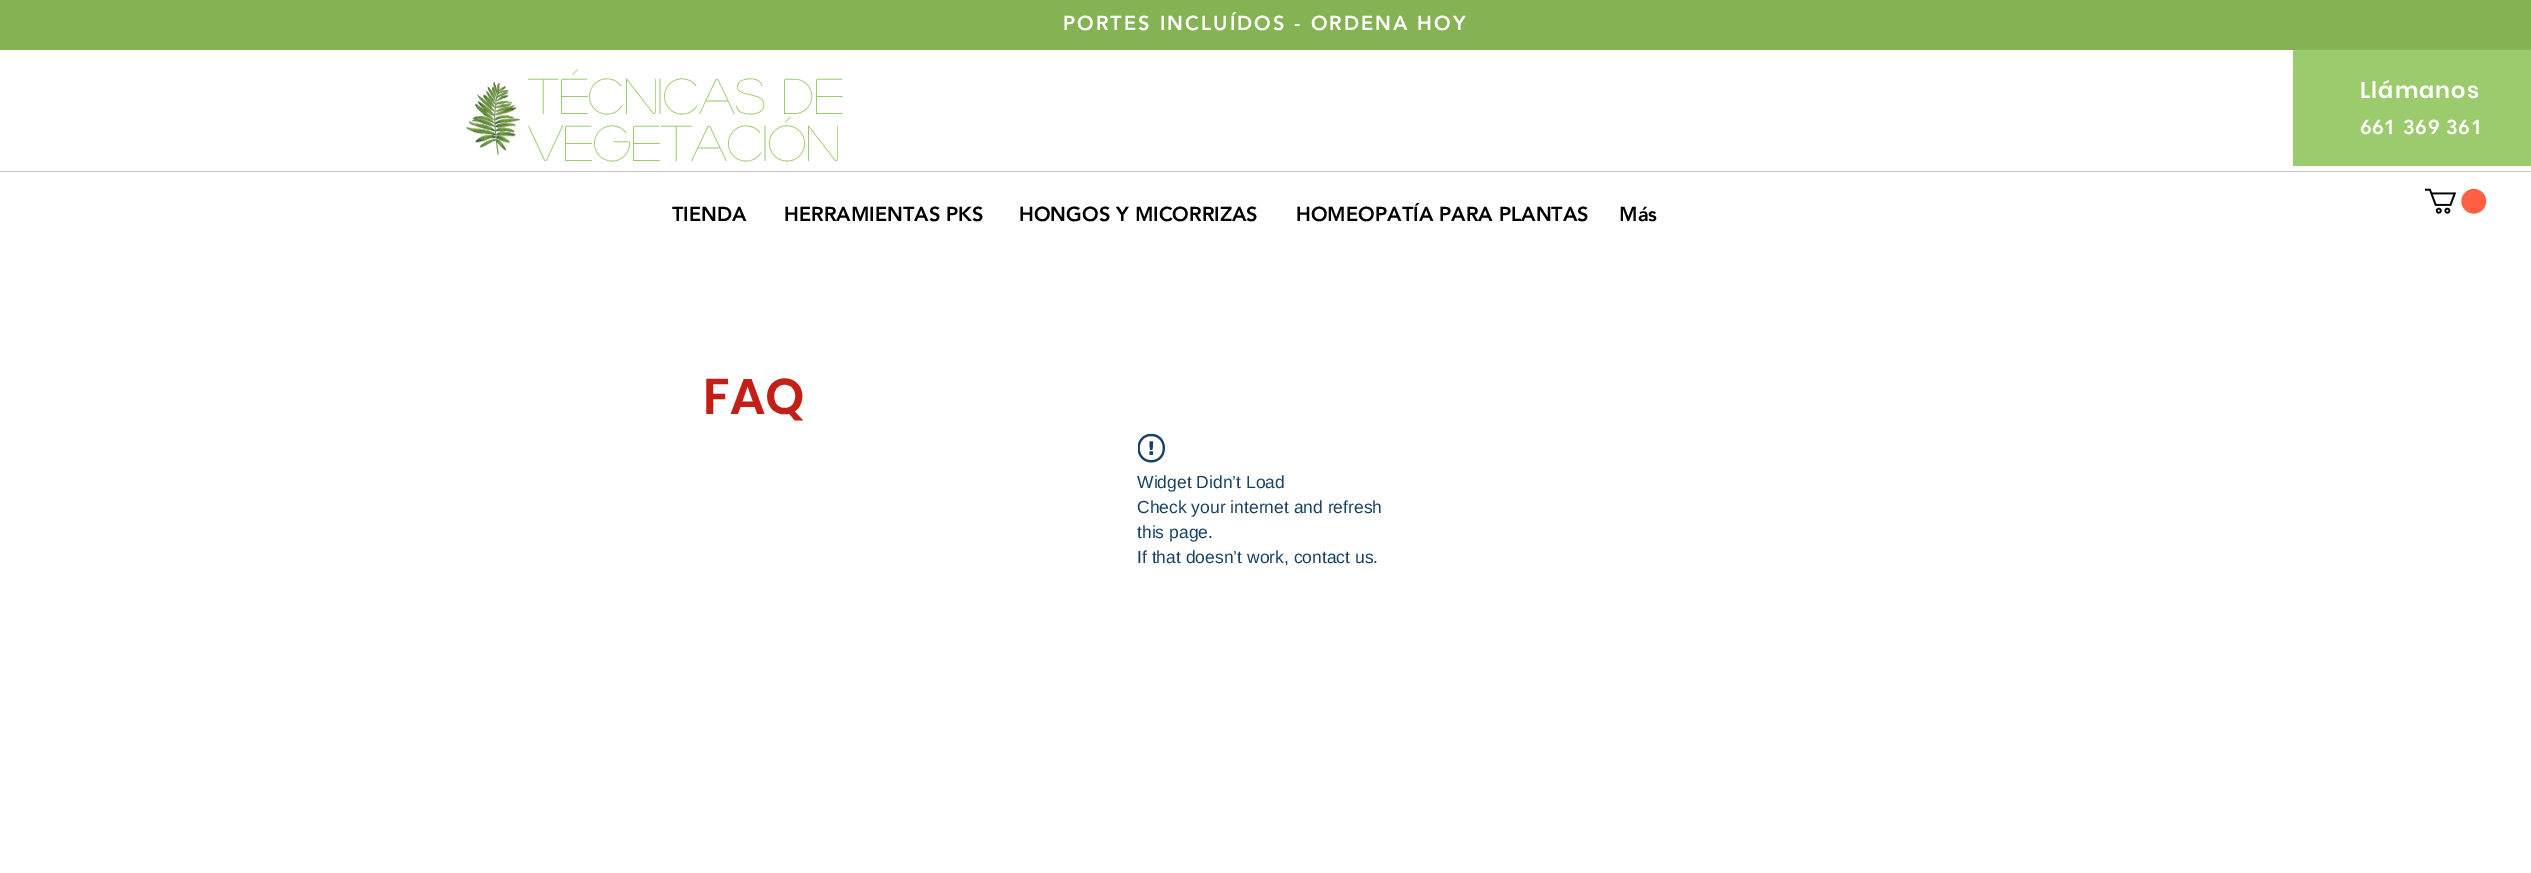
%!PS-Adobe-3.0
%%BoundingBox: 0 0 2531 873
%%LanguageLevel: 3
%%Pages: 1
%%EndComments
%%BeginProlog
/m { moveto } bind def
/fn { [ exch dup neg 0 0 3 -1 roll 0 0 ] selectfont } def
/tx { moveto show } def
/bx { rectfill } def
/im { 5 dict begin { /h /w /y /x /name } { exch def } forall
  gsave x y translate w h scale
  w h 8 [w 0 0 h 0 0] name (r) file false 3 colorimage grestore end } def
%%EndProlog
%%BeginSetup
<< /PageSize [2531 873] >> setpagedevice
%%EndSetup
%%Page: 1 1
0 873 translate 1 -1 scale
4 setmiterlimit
1 setgray
0 0 2531 873 bx
0.522 0.702 0.329 setrgbcolor
0 0 2531 50 bx
/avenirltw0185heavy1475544-Black 20 fn
1 setgray
1063 30 m 2 0 (PORTES INCLUÍDOS - ORDENA HOY) ashow
(image0.raw) 466 81 54 75 im
/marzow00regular-Regular 50 fn
0.608 0.796 0.424 setrgbcolor
(técnicas de) 528 114 tx
(vegetación) 528 161 tx
0.78 setgray
0 171 2531 1 bx
/avenirltw0185heavy1475544-Black 20 fn
0 setgray
(TIENDA) 672 221 tx
(HERRAMIENTAS PKS) 784 221 tx
(HONGOS Y MICORRIZAS) 1019 221 tx
(HOMEOPATÍA PARA PLANTAS) 1296 221 tx
(Más) 1619 221 tx
0.608 0.796 0.424 setrgbcolor
2293 50 238 116 bx
/Poppins-SemiBold 22.5 fn
1 setgray
2360 98 m 1 0 (Llámanos) ashow
/avenirltw0185heavy1475544-Black 20 fn
2360 134 m 0.4 0 (661 369 361) ashow
(image1.raw) 2425 188 62 26 im
/Poppins-SemiBold 50 fn
0.761 0.122 0.09 setrgbcolor
(FAQ) 703 414 tx
(image2.raw) 1138 434 27 29 im
/LiberationSans-Regular 17.5 fn
0.09 0.255 0.396 setrgbcolor
(Widget Didn’t Load) 1137 488 tx
(Check your internet and refresh) 1137 513 tx
(this page.) 1137 538 tx
(If that doesn’t work, contact us.) 1137 563 tx
showpage
%%EOF
